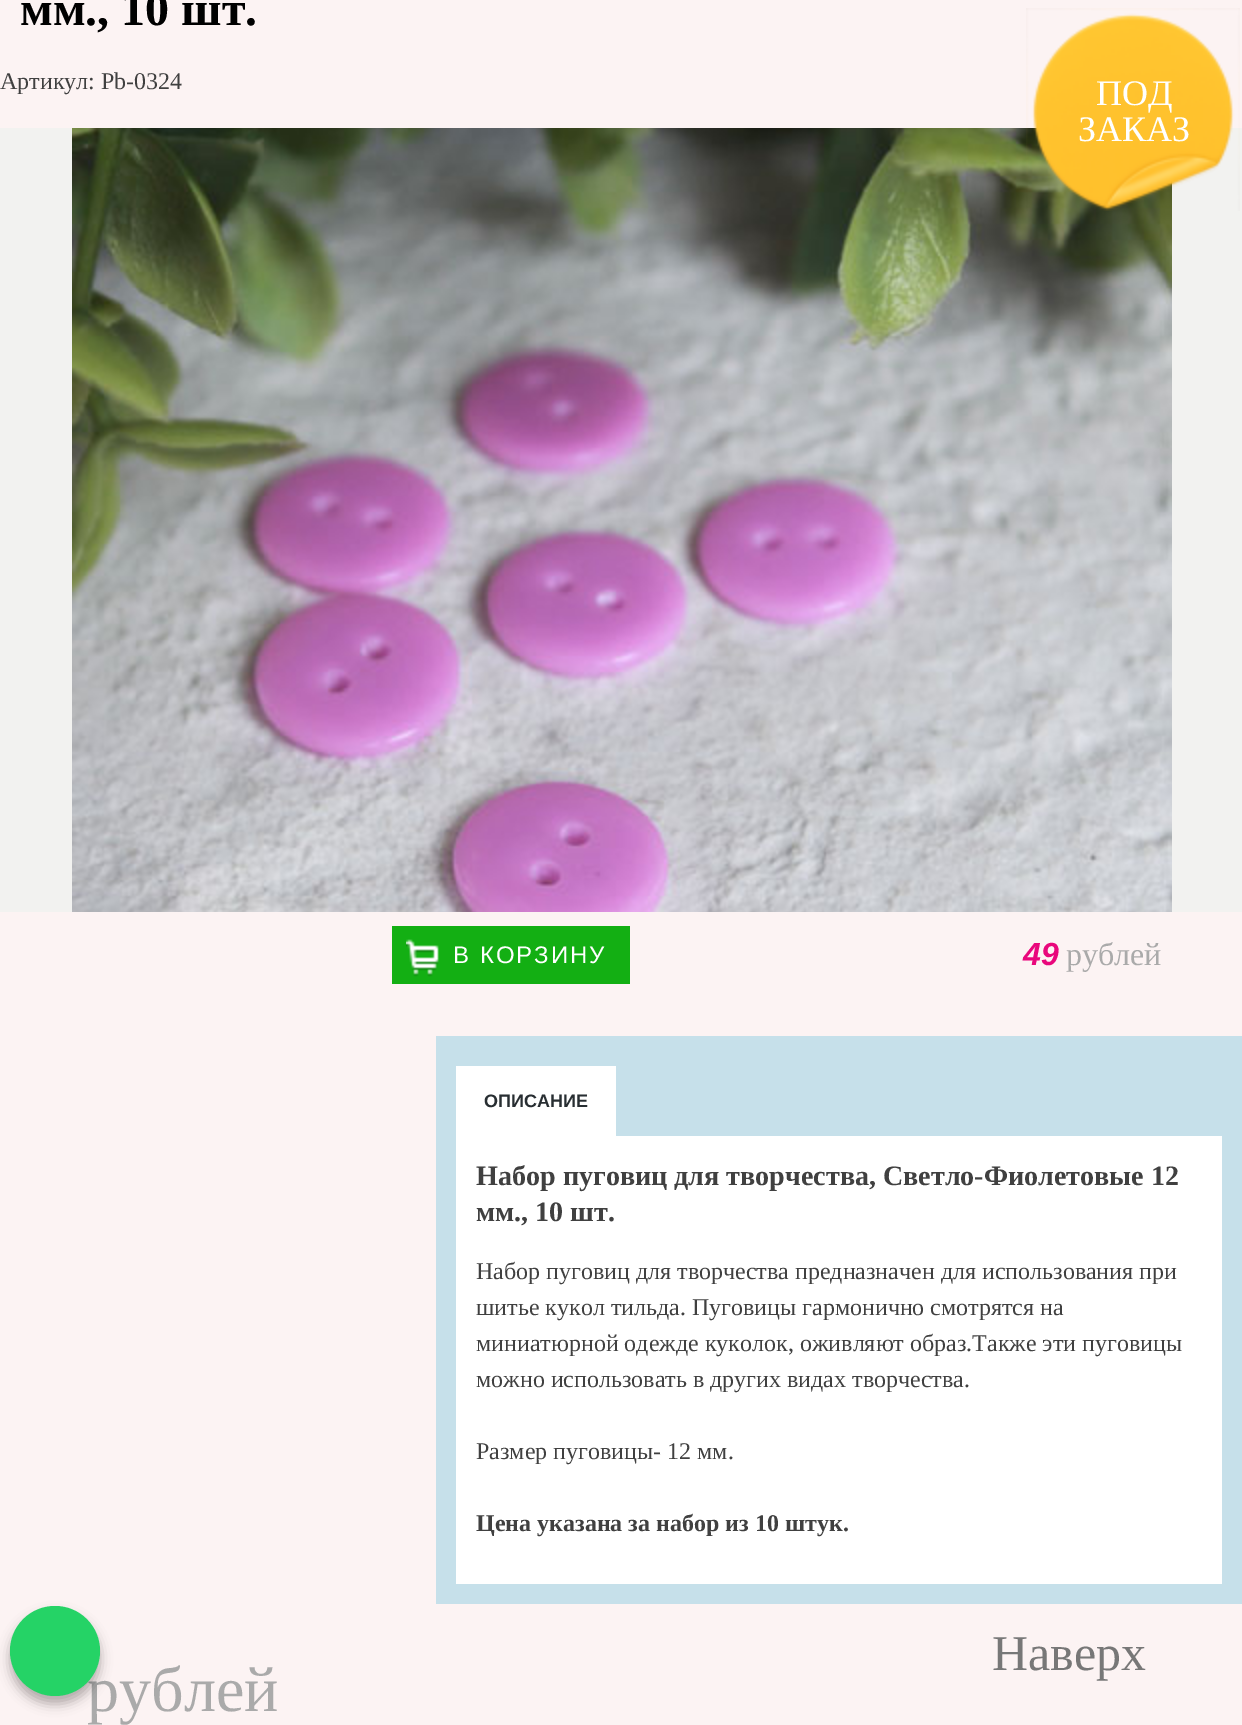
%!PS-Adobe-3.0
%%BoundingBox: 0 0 1242 1725
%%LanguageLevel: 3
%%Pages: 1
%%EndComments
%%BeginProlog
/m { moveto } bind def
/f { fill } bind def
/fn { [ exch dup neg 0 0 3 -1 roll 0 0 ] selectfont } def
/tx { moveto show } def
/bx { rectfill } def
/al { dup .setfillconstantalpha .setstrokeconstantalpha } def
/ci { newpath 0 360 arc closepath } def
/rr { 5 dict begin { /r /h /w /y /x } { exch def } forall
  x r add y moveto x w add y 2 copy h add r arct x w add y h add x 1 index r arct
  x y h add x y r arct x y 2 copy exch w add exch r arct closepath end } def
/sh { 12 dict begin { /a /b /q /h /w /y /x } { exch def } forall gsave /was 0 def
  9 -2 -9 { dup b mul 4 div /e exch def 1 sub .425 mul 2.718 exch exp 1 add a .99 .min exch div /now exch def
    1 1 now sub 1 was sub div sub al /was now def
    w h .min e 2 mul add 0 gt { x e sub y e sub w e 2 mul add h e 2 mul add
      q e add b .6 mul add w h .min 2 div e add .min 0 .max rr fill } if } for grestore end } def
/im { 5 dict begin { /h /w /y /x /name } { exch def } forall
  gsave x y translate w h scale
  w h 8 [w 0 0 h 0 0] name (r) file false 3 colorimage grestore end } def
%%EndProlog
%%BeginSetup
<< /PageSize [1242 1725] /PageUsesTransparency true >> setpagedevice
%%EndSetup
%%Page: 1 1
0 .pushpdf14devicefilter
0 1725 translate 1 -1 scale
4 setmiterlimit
0.988 0.953 0.953 setrgbcolor
0 0 1242 1725 bx
/LiberationSerif-Bold 48 fn
0 setgray
(мм., 10 шт.) 20 25 tx
/LiberationSerif-Regular 24 fn
0.251 setgray
(Артикул: Pb-0324) 0 89 tx
0.949 0.949 0.941 setrgbcolor
0 128 1242 784 bx
(image1.raw) 72 128 1100 784 im
(image0.raw) 1026 8 214 203 im
/LiberationSerif-Regular 36 fn
1 setgray
(ПОД) 1096 105 tx
(ЗАКАЗ) 1078 141 tx
0.075 0.686 0.075 setrgbcolor
392 926 238 58 bx
(image2.raw) 406 939 33 38 im
/LiberationSans-Regular 24 fn
1 setgray
453 963 m 2 0 (В КОРЗИНУ) ashow
/LiberationSans-BoldItalic 32 fn
0.914 0.027 0.486 setrgbcolor
(49) 1023 965 tx
/LiberationSerif-Regular 32 fn
0.667 setgray
(рублей) 1066 965 tx
0.776 0.878 0.918 setrgbcolor
436 1036 806 568 bx
1 setgray
456 1066 160 70 bx
/LiberationSans-Bold 18 fn
0.157 0.18 0.196 setrgbcolor
(ОПИСАНИЕ) 484 1107 tx
1 setgray
456 1136 766 448 bx
/LiberationSerif-Bold 28.1 fn
0.251 setgray
(Набор пуговиц для творчества, Светло-Фиолетовые 12) 476 1185 tx
(мм., 10 шт.) 476 1221 tx
/LiberationSerif-Regular 24 fn
(Набор пуговиц для творчества предназначен для использования при) 476 1279 tx
(шитье кукол тильда. Пуговицы гармонично смотрятся на) 476 1315 tx
(миниатюрной одежде куколок, оживляют образ.Также эти пуговицы) 476 1351 tx
(можно использовать в других видах творчества.) 476 1387 tx
(Размер пуговицы- 12 мм.) 476 1459 tx
/LiberationSerif-Bold 24 fn
(Цена указана за набор из 10 штук.) 476 1531 tx
/LiberationSerif-Regular 64 fn
0.667 setgray
(рублей) 87 1711 tx
/LiberationSerif-Regular 50 fn
0.467 setgray
(Наверх) 992 1670 tx
0 setgray
10 1614 90 90 45 6 0.3 sh
0.145 0.827 0.4 setrgbcolor
55 1651 45 ci f
.poppdf14devicefilter showpage
%%EOF
